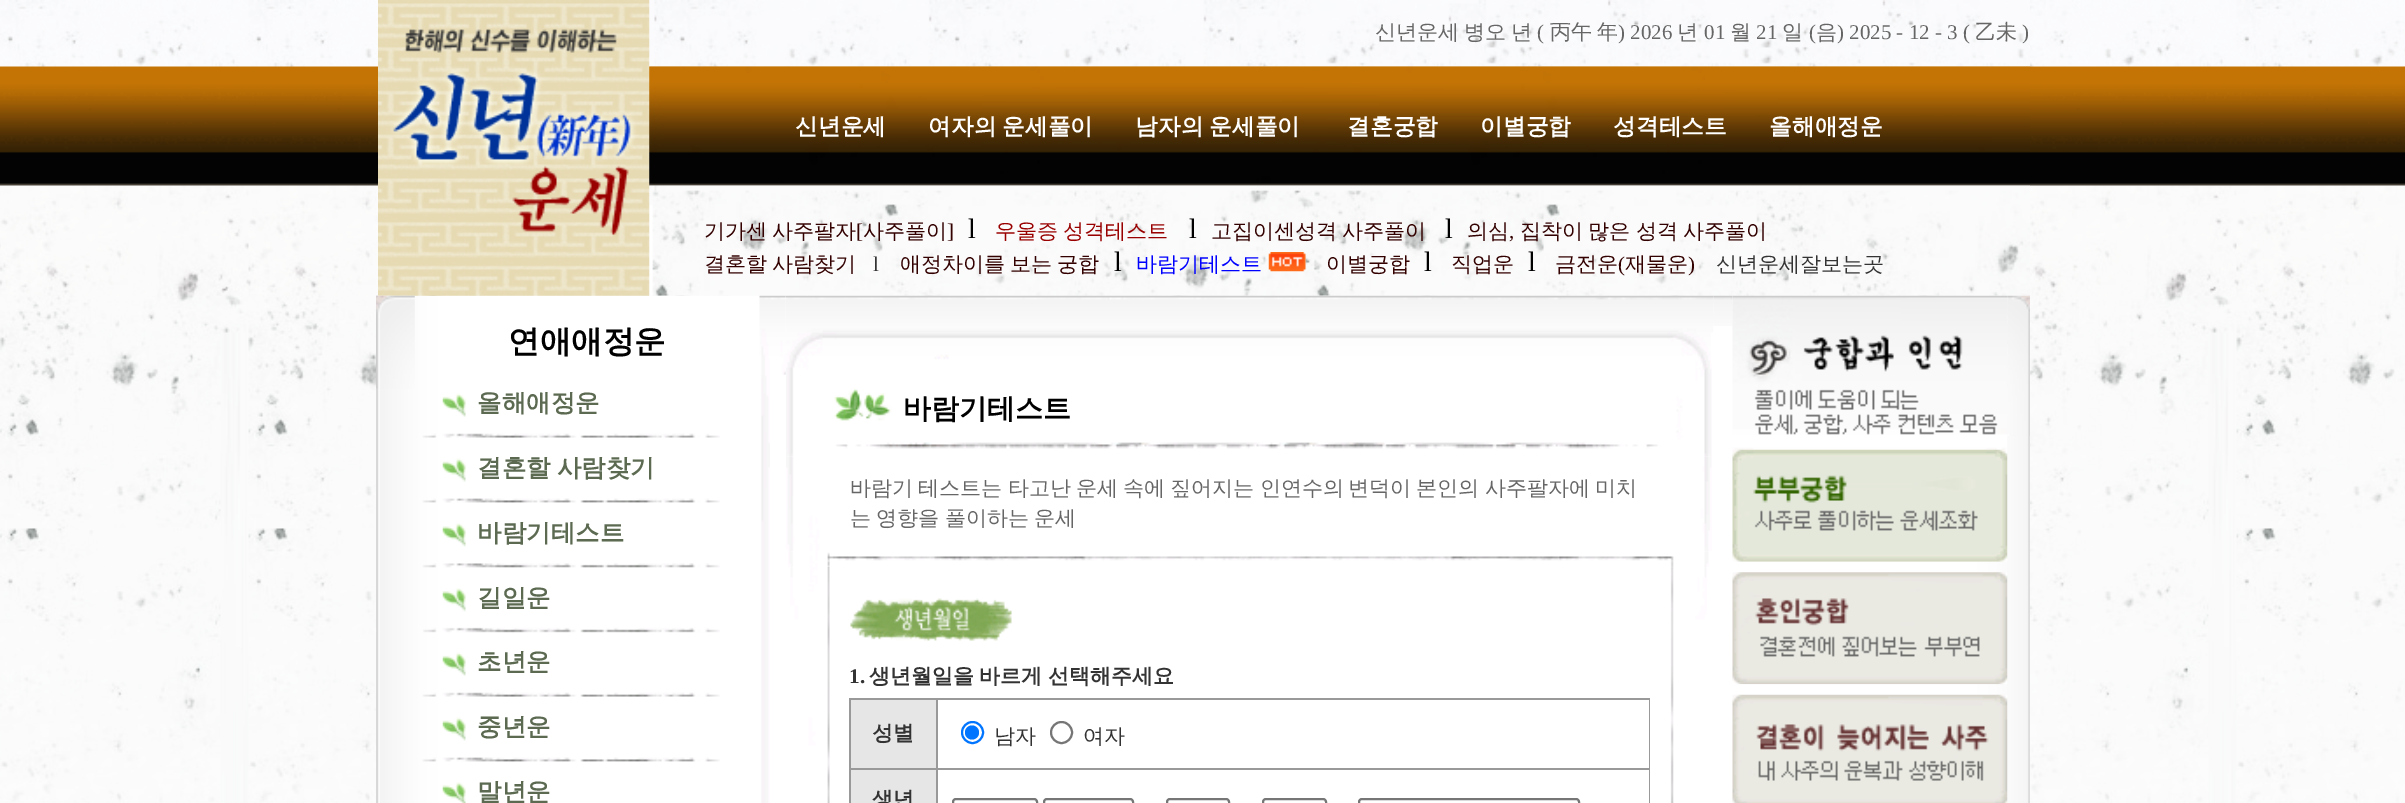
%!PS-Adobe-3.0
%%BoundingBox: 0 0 2405 803
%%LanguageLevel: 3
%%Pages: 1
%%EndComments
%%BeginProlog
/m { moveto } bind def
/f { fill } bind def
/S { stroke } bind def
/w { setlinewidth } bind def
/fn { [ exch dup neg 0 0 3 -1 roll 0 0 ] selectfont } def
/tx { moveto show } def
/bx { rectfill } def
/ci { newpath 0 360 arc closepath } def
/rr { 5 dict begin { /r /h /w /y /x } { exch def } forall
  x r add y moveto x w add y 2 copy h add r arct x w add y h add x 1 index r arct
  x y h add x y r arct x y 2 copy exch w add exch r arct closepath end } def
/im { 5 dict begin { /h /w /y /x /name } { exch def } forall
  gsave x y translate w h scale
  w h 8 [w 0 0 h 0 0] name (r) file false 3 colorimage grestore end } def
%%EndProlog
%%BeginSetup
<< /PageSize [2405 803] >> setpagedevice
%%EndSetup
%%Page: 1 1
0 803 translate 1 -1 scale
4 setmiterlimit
1 setgray
0 0 2405 803 bx
(image0.raw) 0 0 2405 803 im
(image2.raw) 649 0 1381 67 im
(image3.raw) 649 66 1381 120 im
(image4.raw) 649 185 1381 111 im
(image6.raw) 376 295 1654 508 im
(image1.raw) 378 0 272 296 im
/WenQuanYiZenHei-Medium 21 fn
0.4 setgray
(신년운세) 1375 39 tx
(병오) 1464 39 tx
(년) 1511 39 tx
/LiberationSerif-Regular 21 fn
(\() 1537 39 tx
/WenQuanYiZenHei-Medium 21 fn
(丙午) 1550 39 tx
(年) 1597 39 tx
/LiberationSerif-Regular 21 fn
(\) 2026) 1618 39 tx
/WenQuanYiZenHei-Medium 21 fn
(년) 1677 39 tx
/LiberationSerif-Regular 21 fn
(01) 1704 39 tx
/WenQuanYiZenHei-Medium 21 fn
(월) 1730 39 tx
/LiberationSerif-Regular 21 fn
(21) 1756 39 tx
/WenQuanYiZenHei-Medium 21 fn
(일) 1782 39 tx
/LiberationSerif-Regular 21 fn
(\() 1809 39 tx
/WenQuanYiZenHei-Medium 21 fn
(음) 1816 39 tx
/LiberationSerif-Regular 21 fn
(\) 2025 - 12 - 3 \() 1837 39 tx
/WenQuanYiZenHei-Medium 21 fn
(乙未) 1975 39 tx
/LiberationSerif-Regular 21 fn
(\)) 2022 39 tx
/WenQuanYiZenHei-Bold 22.75 fn
1 setgray
(신년운세) 795 134 tx
(여자의) 928 134 tx
(운세풀이) 1002 134 tx
(남자의) 1135 134 tx
(운세풀이) 1209 134 tx
(결혼궁합) 1347 134 tx
(이별궁합) 1480 134 tx
(성격테스트) 1613 134 tx
(올해애정운) 1769 134 tx
/WenQuanYiZenHei-Medium 21 fn
0.204 0.004 0.004 setrgbcolor
(기가센) 704 238 tx
(사주팔자) 772 238 tx
/LiberationSerif-Regular 21 fn
([) 856 238 tx
/WenQuanYiZenHei-Medium 21 fn
(사주풀이) 863 238 tx
/LiberationSerif-Regular 21 fn
(]) 947 238 tx
/LiberationSerif-Regular 28 fn
0 setgray
(l) 968 238 tx
/WenQuanYiZenHei-Medium 21 fn
0.6 0 0 setrgbcolor
(우울증) 995 238 tx
(성격테스트) 1063 238 tx
/LiberationSerif-Regular 28 fn
0 setgray
(l) 1189 238 tx
/WenQuanYiZenHei-Medium 21 fn
0.204 0.004 0.004 setrgbcolor
(고집이센성격) 1211 238 tx
(사주풀이) 1342 238 tx
/LiberationSerif-Regular 28 fn
0 setgray
(l) 1445 238 tx
/WenQuanYiZenHei-Medium 21 fn
0.204 0.004 0.004 setrgbcolor
(의심) 1467 238 tx
/LiberationSerif-Regular 21 fn
(,) 1509 238 tx
/WenQuanYiZenHei-Medium 21 fn
1520 238 m -1 0 32 (집착이 많은 성격 사주풀이) widthshow
(결혼할) 704 271 tx
(사람찾기) 772 271 tx
/LiberationSerif-Regular 21 fn
0.2 setgray
(l) 873 271 tx
/WenQuanYiZenHei-Medium 21 fn
0.204 0.004 0.004 setrgbcolor
(애정차이를) 900 271 tx
1010 271 m -1 0 32 (보는 궁합) widthshow
/LiberationSerif-Regular 28 fn
0 setgray
(l) 1114 271 tx
/WenQuanYiZenHei-Medium 21 fn
0 0 1 setrgbcolor
(바람기테스트) 1136 271 tx
(image5.raw) 1268 252 38 20 im
0.204 0.004 0.004 setrgbcolor
(이별궁합) 1326 271 tx
/LiberationSerif-Regular 28 fn
0 setgray
(l) 1424 271 tx
/WenQuanYiZenHei-Medium 21 fn
0.204 0.004 0.004 setrgbcolor
(직업운) 1451 271 tx
/LiberationSerif-Regular 28 fn
0 setgray
(l) 1528 271 tx
/WenQuanYiZenHei-Medium 21 fn
0.204 0.004 0.004 setrgbcolor
(금전운) 1555 271 tx
/LiberationSerif-Regular 21 fn
(\() 1618 271 tx
/WenQuanYiZenHei-Medium 21 fn
(재물운) 1625 271 tx
/LiberationSerif-Regular 21 fn
(\)) 1688 271 tx
/WenQuanYiZenHei-Medium 21 fn
0.2 setgray
(신년운세잘보는곳) 1716 271 tx
(image7.raw) 376 295 39 94 im
/WenQuanYiZenHei-Bold 31.5 fn
0 setgray
(연애애정운) 508 352 tx
(image8.raw) 442 393 24 24 im
/WenQuanYiZenHei-Bold 24.5 fn
0.361 0.416 0.318 setrgbcolor
(올해애정운) 477 411 tx
(image9.raw) 422 433 298 5 im
(image10.raw) 442 458 24 24 im
477 476 m -1 0 32 (결혼할 사람찾기) widthshow
(image11.raw) 422 498 298 5 im
(image12.raw) 442 523 24 24 im
(바람기테스트) 477 541 tx
(image13.raw) 422 563 298 5 im
(image14.raw) 442 588 24 24 im
(길일운) 477 606 tx
(image15.raw) 423 627 297 6 im
(image8.raw) 442 652 24 24 im
(초년운) 477 670 tx
(image9.raw) 422 692 298 5 im
(image10.raw) 442 717 24 24 im
(중년운) 477 735 tx
(image11.raw) 422 757 298 5 im
(image16.raw) 442 782 24 21 im
(말년운) 477 800 tx
(image17.raw) 759 295 11 508 im
(image18.raw) 770 295 16 80 im
(image19.raw) 786 295 928 38 im
(image20.raw) 786 332 925 32 im
(image21.raw) 786 364 926 93 im
/WenQuanYiZenHei-Bold 28 fn
0 setgray
(바람기테스트) 903 418 tx
(image22.raw) 786 457 926 94 im
/WenQuanYiZenHei-Medium 21 fn
0.4 setgray
850 495 m -1 0 32 (바람기 테스트는 타고난 운세 속에 짚어지는 인연수의) widthshow
1348 495 m -1 0 32 (변덕이 본인의 사주팔자에 미치) widthshow
850 525 m -1 0 32 (는 영향을 풀이하는 운세) widthshow
(image23.raw) 788 551 921 16 im
(image24.raw) 790 567 917 236 im
(image25.raw) 850 598 162 43 im
/LiberationSerif-Bold 21 fn
0.2 setgray
(1.) 849 683 tx
/WenQuanYiZenHei-Bold 21 fn
869 683 m -1 0 32 (생년월일을 바르게 선택해주세요) widthshow
0.6 setgray
849 698 801 105 bx
0.902 setgray
851 700 85 68 bx
0.2 setgray
(성별) 872 740 tx
1 setgray
938 700 711 68 bx
0 0.459 1 setrgbcolor
2 w
972.5 732.5 10.5 ci S
972 732.5 7 ci f
/WenQuanYiZenHei-Medium 21 fn
0.2 setgray
(남자) 994 743 tx
0.463 setgray
1061.5 732.5 10.5 ci S
0.2 setgray
(여자) 1083 743 tx
0.902 setgray
851 770 85 33 bx
/WenQuanYiZenHei-Bold 21 fn
0.2 setgray
(생년) 872 806 tx
1 setgray
938 770 711 33 bx
0.463 setgray
953 799 84 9 3 rr S
1044 799 89 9 3 rr S
1167 799 62 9 3 rr S
1263 799 63 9 3 rr S
1359 799 220 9 3 rr S
(image26.raw) 1713 295 20 31 im
(image27.raw) 1732 295 276 155 im
(image28.raw) 1732 449 276 113 im
(image29.raw) 1738 561 264 1 im
(image30.raw) 1732 572 276 113 im
(image31.raw) 1738 684 263 1 im
(image32.raw) 1732 694 276 109 im
(image33.raw) 2007 295 23 141 im
showpage
%%EOF
